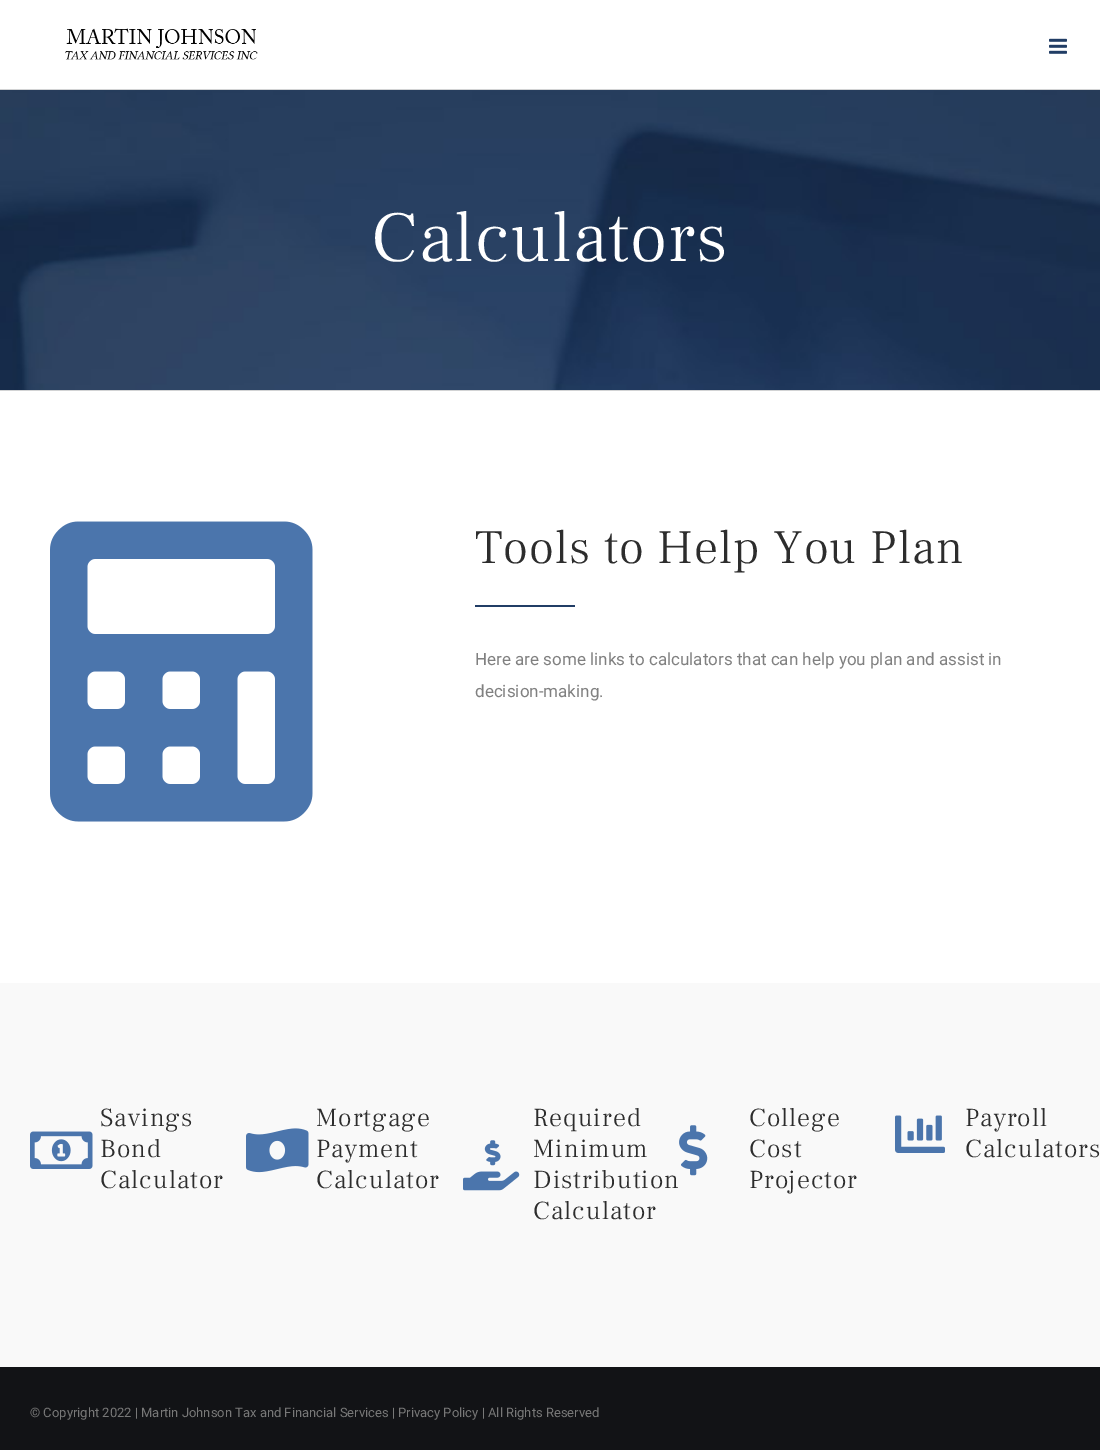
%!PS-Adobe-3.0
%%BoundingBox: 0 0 1100 1450
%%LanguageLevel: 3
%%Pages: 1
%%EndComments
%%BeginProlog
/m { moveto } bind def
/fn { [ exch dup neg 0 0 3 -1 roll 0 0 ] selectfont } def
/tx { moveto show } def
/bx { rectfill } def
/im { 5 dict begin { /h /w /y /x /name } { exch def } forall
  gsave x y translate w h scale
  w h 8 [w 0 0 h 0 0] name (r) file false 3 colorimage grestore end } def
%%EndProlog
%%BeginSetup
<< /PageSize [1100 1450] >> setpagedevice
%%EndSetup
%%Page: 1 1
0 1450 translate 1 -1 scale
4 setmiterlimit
1 setgray
0 0 1100 1450 bx
(image0.raw) 65 28 193 32 im
(image1.raw) 1049 38 18 16 im
(image2.raw) 0 90 1100 300 im
0.824 0.827 0.831 setrgbcolor
0 89 1100 1 bx
0 390 1100 1 bx
/FrankRuhlLibre-Light 72 fn
1 setgray
371 261 m 1 0 (Calculators) ashow
(image3.raw) 50 521 263 301 im
/FrankRuhlLibre-Light 48 fn
0.176 setgray
475 563 m 1 0 (Tools to Help You Plan) ashow
0.129 0.239 0.396 setrgbcolor
475 605 100 2 bx
/Roboto-Regular 17 fn
0.502 setgray
(Here are some links to calculators that can help you plan and assist in) 475 665 tx
(decision-making.) 475 697 tx
0.976 setgray
0 983 1100 384 bx
(image4.raw) 30 1131 63 38 im
/FrankRuhlLibre-Light 26 fn
0.176 setgray
100 1126 m 1 0 (Savings) ashow
100 1157 m 1 0 (Bond) ashow
100 1188 m 1 0 (Calculator) ashow
(image5.raw) 246 1128 63 45 im
316 1126 m 1 0 (Mortgage) ashow
316 1157 m 1 0 (Payment) ashow
316 1188 m 1 0 (Calculator) ashow
(image6.raw) 463 1140 57 51 im
533 1126 m 1 0 (Required) ashow
533 1157 m 1 0 (Minimum) ashow
533 1188 m 1 0 (Distribution) ashow
533 1219 m 1 0 (Calculator) ashow
(image7.raw) 679 1125 29 51 im
749 1126 m 1 0 (College) ashow
749 1157 m 1 0 (Cost) ashow
749 1188 m 1 0 (Projector) ashow
(image8.raw) 895 1115 50 38 im
965 1126 m 1 0 (Payroll) ashow
965 1157 m 1 0 (Calculators) ashow
0.071 0.075 0.086 setrgbcolor
0 1367 1100 83 bx
/Roboto-Regular 13 fn
0.471 setgray
(© Copyright 2022 | Martin Johnson Tax and Financial Services | Privacy Policy | All Rights Reserved) 30 1417 tx
showpage
%%EOF
